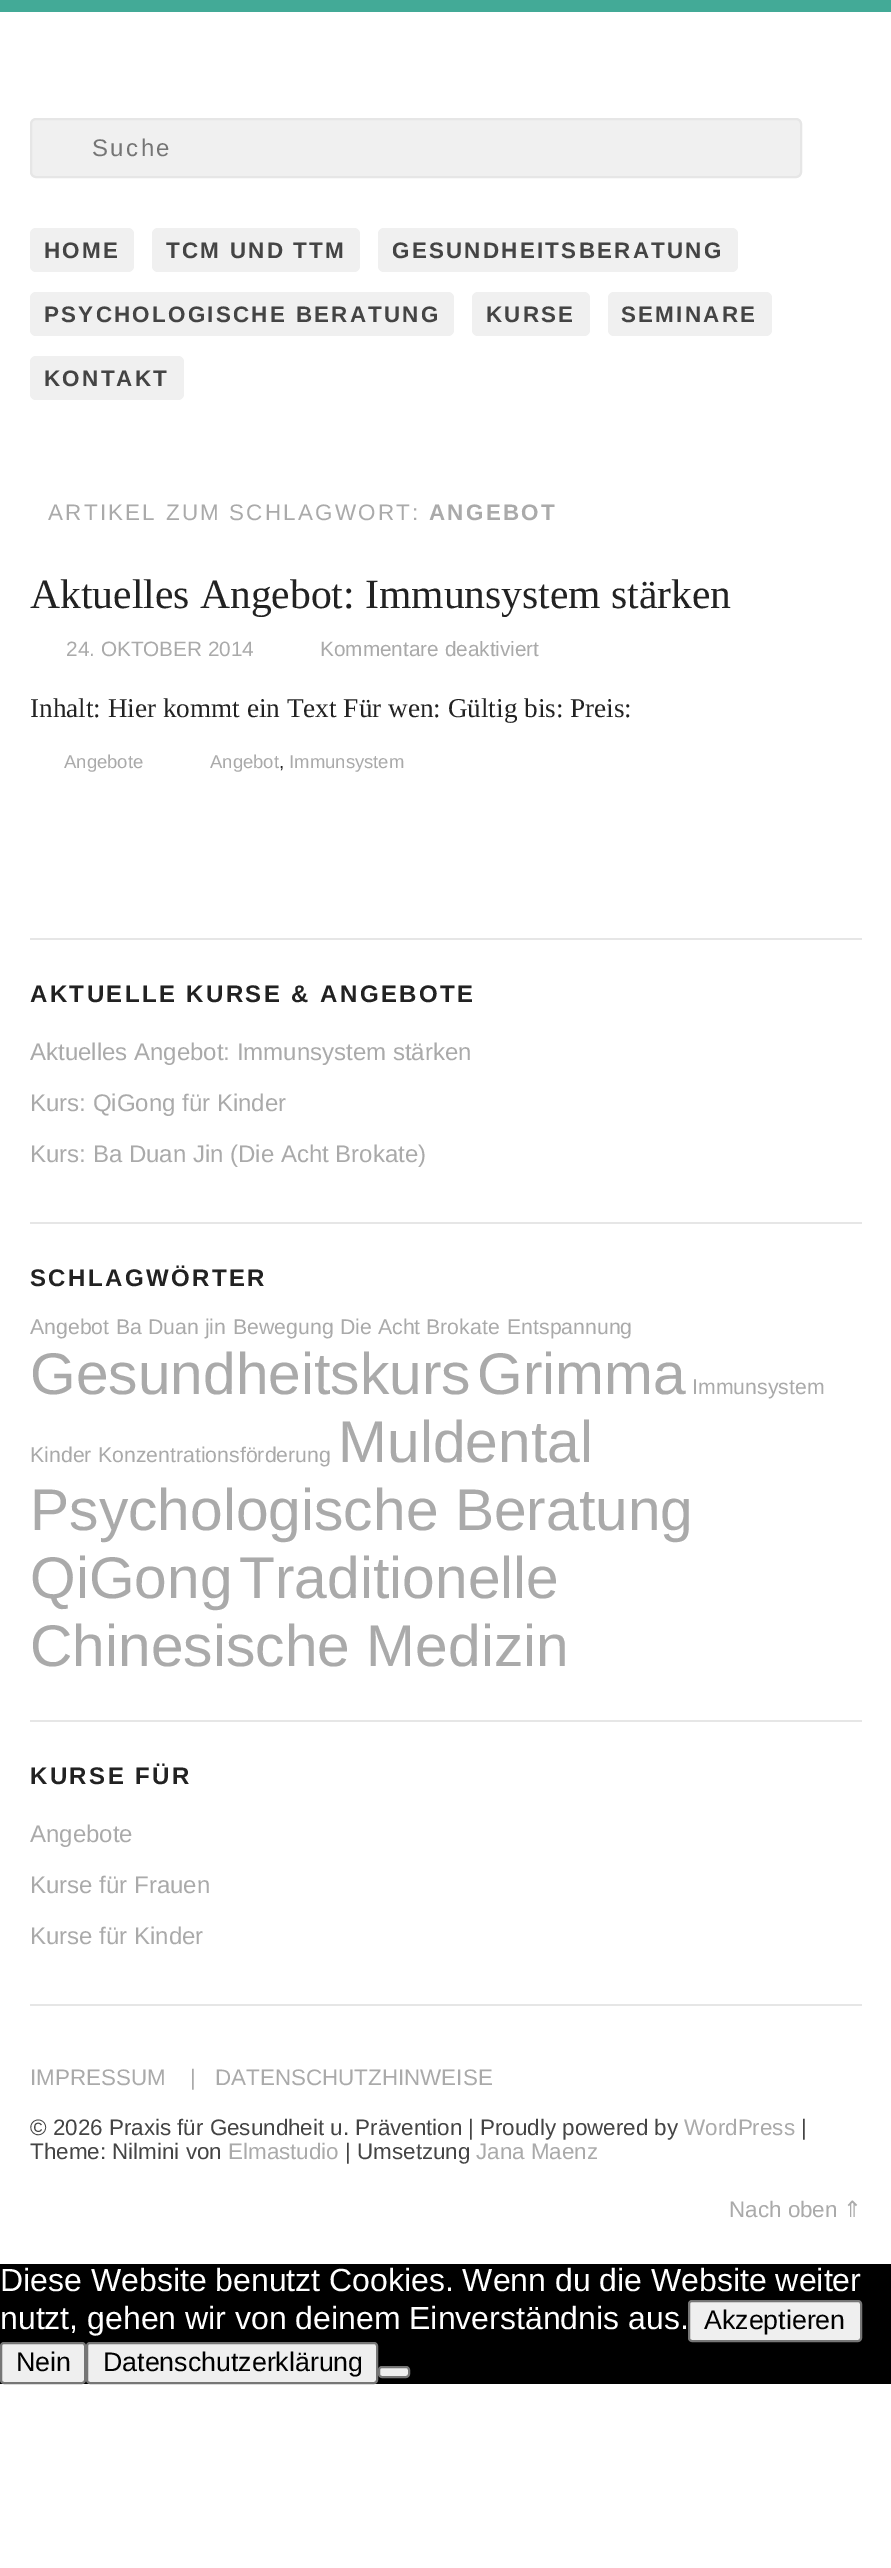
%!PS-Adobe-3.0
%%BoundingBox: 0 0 891 2568
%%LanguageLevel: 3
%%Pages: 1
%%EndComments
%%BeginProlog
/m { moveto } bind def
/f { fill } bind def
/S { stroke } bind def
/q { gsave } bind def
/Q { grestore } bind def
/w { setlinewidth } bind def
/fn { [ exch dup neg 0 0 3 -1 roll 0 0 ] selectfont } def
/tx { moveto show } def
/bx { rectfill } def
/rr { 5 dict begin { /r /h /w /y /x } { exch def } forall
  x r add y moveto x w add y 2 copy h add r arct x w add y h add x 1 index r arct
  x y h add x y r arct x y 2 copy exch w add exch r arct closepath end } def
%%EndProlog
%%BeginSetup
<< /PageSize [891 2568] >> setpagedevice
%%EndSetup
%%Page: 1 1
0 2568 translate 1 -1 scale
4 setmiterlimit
1 setgray
0 0 891 2568 bx
0.263 0.667 0.592 setrgbcolor
0 0 891 12 bx
0.941 setgray
31 119 770 58 5 rr q f Q
0.902 setgray
2 w
S
/LiberationSans-Regular 24 fn
0.459 setgray
92 156 m 2.4 0 (Suche) ashow
0.941 setgray
30 228 104 44 6 rr f
/LiberationSans-Bold 22.4 fn
0.267 setgray
44 258 m 2.25 0 (HOME) ashow
0.941 setgray
152 228 208 44 6 rr f
0.267 setgray
166 258 m 2.25 0 (TCM UND TTM) ashow
0.941 setgray
378 228 360 44 6 rr f
0.267 setgray
392 258 m 2.25 0 (GESUNDHEITSBERATUNG) ashow
0.941 setgray
30 292 424 44 6 rr f
0.267 setgray
44 322 m 2.25 0 (PSYCHOLOGISCHE BERATUNG) ashow
0.941 setgray
472 292 118 44 6 rr f
0.267 setgray
486 322 m 2.25 0 (KURSE) ashow
0.941 setgray
608 292 164 44 6 rr f
0.267 setgray
621 322 m 2.25 0 (SEMINARE) ashow
0.941 setgray
30 356 154 44 6 rr f
0.267 setgray
44 386 m 2.25 0 (KONTAKT) ashow
/LiberationSans-Regular 22.4 fn
0.667 setgray
48 520 m 2.25 0 (ARTIKEL ZUM SCHLAGWORT:) ashow
/LiberationSans-Bold 22.4 fn
429 520 m 2.25 0 (ANGEBOT) ashow
/LiberationSerif-Regular 41.6 fn
0.133 setgray
(Aktuelles Angebot: Immunsystem stärken) 30 608 tx
/LiberationSans-Regular 20.75 fn
0.667 setgray
(24. OKTOBER 2014) 66 656 tx
(Kommentare deaktiviert) 320 656 tx
/LiberationSerif-Regular 27.2 fn
0.133 setgray
(Inhalt: Hier kommt ein Text Für wen: Gültig bis: Preis:) 30 717 tx
/LiberationSans-Regular 18.5 fn
0.667 setgray
(Angebote) 64 768 tx
(Angebot) 210 768 tx
0.133 setgray
(,) 279 768 tx
0.667 setgray
(Immunsystem) 289 768 tx
0.902 setgray
30 938 832 2 bx
30 1222 832 2 bx
/LiberationSans-Bold 24 fn
0.133 setgray
30 1002 m 2.4 0 (AKTUELLE KURSE & ANGEBOTE) ashow
/LiberationSans-Regular 24 fn
0.667 setgray
(Aktuelles Angebot: Immunsystem stärken) 30 1060 tx
(Kurs: QiGong für Kinder) 30 1111 tx
(Kurs: Ba Duan Jin \(Die Acht Brokate\)) 30 1162 tx
0.902 setgray
30 1720 832 2 bx
/LiberationSans-Bold 24 fn
0.133 setgray
30 1286 m 2.4 0 (SCHLAGWÖRTER) ashow
/LiberationSans-Regular 21.25 fn
0.667 setgray
(Angebot) 30 1334 tx
(Ba Duan jin) 116 1334 tx
(Bewegung) 233 1334 tx
(Die Acht Brokate) 340 1334 tx
(Entspannung) 507 1334 tx
/LiberationSans-Regular 58.75 fn
(Gesundheitskurs) 30 1394 tx
(Grimma) 477 1394 tx
/LiberationSans-Regular 21.25 fn
(Immunsystem) 692 1394 tx
(Kinder) 30 1462 tx
(Konzentrationsförderung) 98 1462 tx
/LiberationSans-Regular 58.75 fn
(Muldental) 338 1462 tx
(Psychologische Beratung) 30 1530 tx
(QiGong) 30 1598 tx
(Traditionelle) 239 1598 tx
(Chinesische Medizin) 30 1666 tx
/LiberationSans-Bold 24 fn
0.133 setgray
30 1784 m 2.4 0 (KURSE FÜR) ashow
/LiberationSans-Regular 24 fn
0.667 setgray
(Angebote) 30 1842 tx
(Kurse für Frauen) 30 1893 tx
(Kurse für Kinder) 30 1944 tx
0.902 setgray
30 2004 832 2 bx
/LiberationSans-Regular 22.4 fn
0.667 setgray
(IMPRESSUM) 30 2085 tx
(|) 190 2085 tx
(DATENSCHUTZHINWEISE) 215 2085 tx
0.267 setgray
(© 2026 Praxis für Gesundheit u. Prävention) 30 2135 tx
(| Proudly powered by) 468 2135 tx
0.667 setgray
(WordPress) 684 2135 tx
0.267 setgray
(|) 801 2135 tx
(Theme: Nilmini von) 30 2159 tx
0.667 setgray
(Elmastudio) 228 2159 tx
0.267 setgray
(| Umsetzung) 345 2159 tx
0.667 setgray
(Jana Maenz) 476 2159 tx
(Nach oben) 729 2217 tx
/DejaVuSans-Regular 22.4 fn
(⇑) 843 2217 tx
0 setgray
0 2264 891 120 bx
/LiberationSans-Regular 32 fn
1 setgray
(Diese Website benutzt Cookies. Wenn du die Website weiter) 0 2291 tx
(nutzt, gehen wir von deinem Einverständnis aus.) 0 2329 tx
0.937 setgray
689 2301 172 40 3 rr q f Q
0.463 setgray
S
/LiberationSans-Regular 26.75 fn
0 setgray
(Akzeptieren) 704 2329 tx
0.937 setgray
1 2343 84 40 3 rr q f Q
0.463 setgray
S
0 setgray
(Nein) 16 2371 tx
0.937 setgray
87 2343 290 40 3 rr q f Q
0.463 setgray
S
0 setgray
(Datenschutzerklärung) 103 2371 tx
0.937 setgray
379 2367 30 10 3 rr q f Q
0.463 setgray
S
showpage
%%EOF
